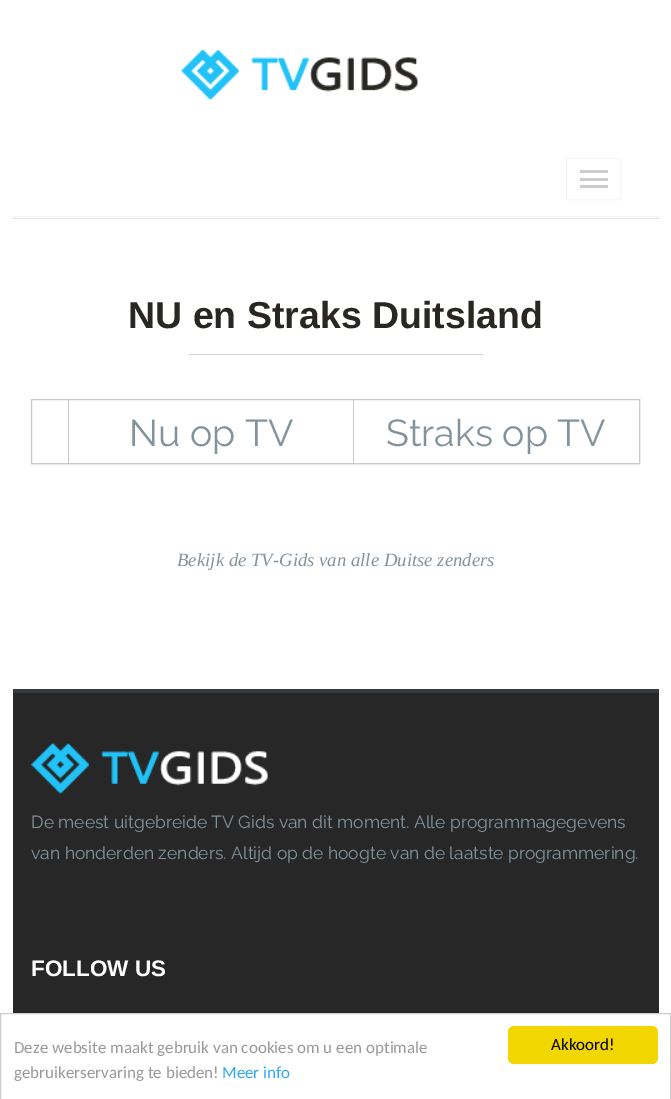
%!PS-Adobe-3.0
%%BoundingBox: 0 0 671 1099
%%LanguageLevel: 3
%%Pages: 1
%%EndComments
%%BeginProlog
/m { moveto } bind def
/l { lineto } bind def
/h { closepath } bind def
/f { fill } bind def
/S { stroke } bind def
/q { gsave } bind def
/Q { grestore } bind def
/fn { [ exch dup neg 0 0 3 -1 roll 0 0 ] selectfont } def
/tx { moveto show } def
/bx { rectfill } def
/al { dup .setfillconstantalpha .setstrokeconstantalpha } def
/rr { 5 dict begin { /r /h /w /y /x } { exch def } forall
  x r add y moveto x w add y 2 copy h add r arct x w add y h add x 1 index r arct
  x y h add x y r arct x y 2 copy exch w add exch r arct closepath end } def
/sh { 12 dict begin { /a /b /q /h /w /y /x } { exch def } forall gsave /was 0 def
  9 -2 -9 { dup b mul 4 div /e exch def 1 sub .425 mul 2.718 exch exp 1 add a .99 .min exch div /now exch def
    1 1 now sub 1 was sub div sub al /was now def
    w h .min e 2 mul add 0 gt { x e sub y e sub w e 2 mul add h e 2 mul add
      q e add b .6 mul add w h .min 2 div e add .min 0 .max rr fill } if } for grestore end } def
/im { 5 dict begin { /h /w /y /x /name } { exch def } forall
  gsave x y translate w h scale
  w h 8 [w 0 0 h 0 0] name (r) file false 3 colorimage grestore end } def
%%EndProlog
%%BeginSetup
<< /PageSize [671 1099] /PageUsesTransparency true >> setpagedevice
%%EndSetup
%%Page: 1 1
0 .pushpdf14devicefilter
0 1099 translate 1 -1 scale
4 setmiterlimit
1 setgray
0 0 671 1099 bx
0.949 setgray
13 216 646 1 bx
(image0.raw) 181 49 237 51 im
0.961 setgray
566.5 158.5 54 41 rectstroke
0.8 setgray
580 170 28 3 bx
580 178 28 3 bx
580 185 28 3 bx
0.878 setgray
13 218 646 1 bx
/LiberationSans-Bold 37.5 fn
0.161 0.153 0.137 setrgbcolor
(NU en Straks Duitsland) 128 328 tx
0.831 setgray
189 354 294 1 bx
0 setgray
31 400 609 65 0 0.5 0.05 sh
1 setgray
31.5 399.5 m 639.5 399.5 l 639.5 463.5 l 31.5 463.5 l h q f Q
0.788 setgray
S
68 400 1 63 bx
353 400 1 63 bx
/Raleway-Regular 37.5 fn
0.514 0.576 0.612 setrgbcolor
(Nu op TV) 129 446 tx
(Straks op TV) 386 446 tx
/LiberationSerif-Italic 18.75 fn
(Bekijk de TV-Gids van alle Duitse zenders) 177 566 tx
0.153 setgray
13 693 646 320 bx
0.208 0.227 0.243 setrgbcolor
13 689 646 4 bx
(image1.raw) 31 743 237 51 im
/Raleway-Regular 17.5 fn
0.514 0.576 0.612 setrgbcolor
(De meest uitgebreide TV Gids van dit moment. Alle programmagegevens) 31 828 tx
(van honderden zenders. Altijd op de hoogte van de laatste programmering.) 31 859 tx
/LiberationSans-Bold 22.5 fn
1 setgray
(FOLLOW US) 31 976 tx
0.8 setgray
0.5 1013.5 670 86 rectstroke
/Carlito-Regular 17 fn
0.6 setgray
(Deze website maakt gebruik van cookies om u een optimale) 14 1053 tx
(gebruikerservaring te bieden!) 14 1078 tx
0.192 0.659 0.941 setrgbcolor
(Meer info) 222 1078 tx
0.945 0.839 0 setrgbcolor
508 1026 150 38 6 rr f
0 setgray
(Akkoord!) 551 1050 tx
.poppdf14devicefilter showpage
%%EOF
